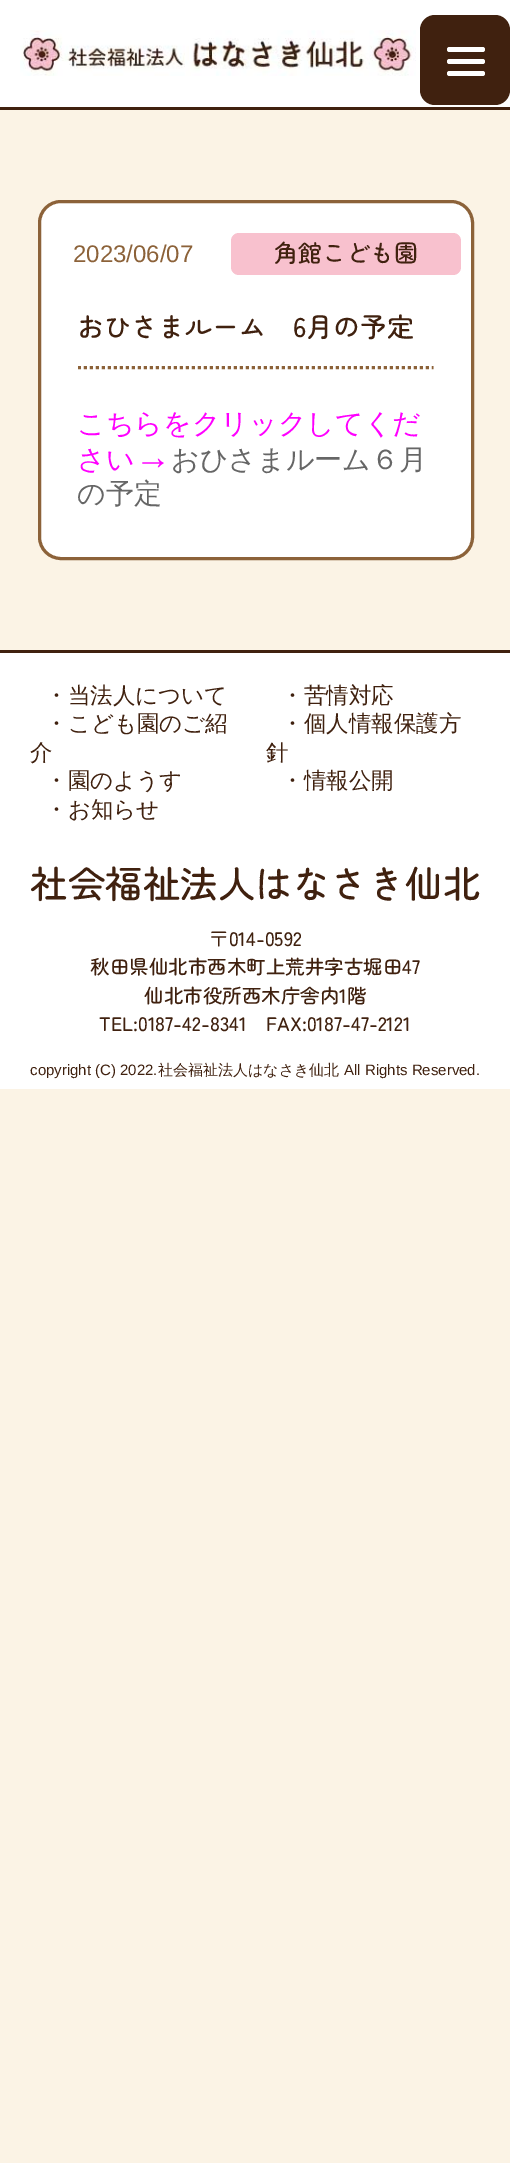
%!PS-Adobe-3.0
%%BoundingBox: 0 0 510 2163
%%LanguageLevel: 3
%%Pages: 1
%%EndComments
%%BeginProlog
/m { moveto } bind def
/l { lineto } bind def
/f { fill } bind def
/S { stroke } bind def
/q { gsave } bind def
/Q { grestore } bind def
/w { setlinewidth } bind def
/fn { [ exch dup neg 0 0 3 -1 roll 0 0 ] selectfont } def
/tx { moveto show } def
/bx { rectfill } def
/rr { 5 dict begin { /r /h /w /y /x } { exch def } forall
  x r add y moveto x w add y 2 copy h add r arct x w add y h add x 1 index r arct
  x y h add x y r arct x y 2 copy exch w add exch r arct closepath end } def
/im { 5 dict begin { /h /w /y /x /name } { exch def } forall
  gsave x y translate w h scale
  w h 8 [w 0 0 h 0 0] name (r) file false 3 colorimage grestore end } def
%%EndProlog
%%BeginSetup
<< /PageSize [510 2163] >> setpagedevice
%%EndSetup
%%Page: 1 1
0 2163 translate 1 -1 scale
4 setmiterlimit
0.984 0.953 0.898 setrgbcolor
0 0 510 2163 bx
1 setgray
0 0 510 107 bx
0.251 0.129 0.059 setrgbcolor
0 107 510 3 bx
(image0.raw) 20 30 396 46 im
420 15 90 90 15 rr f
1 setgray
447 59 38 5 2.5 rr f
447 47 38 5 2.5 rr f
447 71 38 5 2.5 rr f
39.5 201.5 433 357 21.5 rr q f Q
0.549 0.384 0.224 setrgbcolor
3 w
S
/LiberationSans-Regular 24 fn
(2023/06/07) 73 262 tx
0.973 0.757 0.808 setrgbcolor
231 233 230 42 8 rr f
/ZenMaruGothic-Medium 24 fn
0.251 0.129 0.059 setrgbcolor
(角館こども園) 274 262 tx
/ZenMaruGothic-Medium 27 fn
(おひさまルーム　6月の予定) 77 337 tx
0.549 0.384 0.224 setrgbcolor
[3 3] 0 setdash
78 367.5 m 433.5 367.5 l S
/WenQuanYiZenHei-Medium 28 fn
1 0 1 setrgbcolor
(こちらをクリックしてくだ) 77 433 tx
(さい) 77 469 tx
/LiberationSans-Regular 36 fn
(→) 135 469 tx
/WenQuanYiZenHei-Medium 28 fn
0.4 setgray
(おひさまルーム６月) 171 469 tx
(の予定) 77 503 tx
1 setgray
0 653 510 436 bx
0.251 0.129 0.059 setrgbcolor
0 650 510 3 bx
/WenQuanYiZenHei-Medium 22.5 fn
(・当法人について) 45 703 tx
(・こども園のご紹) 45 731 tx
(介) 30 760 tx
(・園のようす) 45 788 tx
(・お知らせ) 45 817 tx
(・苦情対応) 281 703 tx
(・個人情報保護方) 281 731 tx
(針) 266 760 tx
(・情報公開) 281 788 tx
/ZenMaruGothic-Medium 37.5 fn
(社会福祉法人はなさき仙北) 30 898 tx
/ZenMaruGothic-Medium 19.5 fn
(〒014-0592) 209 946 tx
(秋田県仙北市西木町上荒井字古堀田47) 90 974 tx
(仙北市役所西木庁舎内1階) 144 1003 tx
(TEL:0187-42-8341　FAX:0187-47-2121) 99 1031 tx
/LiberationSans-Regular 15 fn
(copyright \(C\) 2022.) 30 1075 tx
/WenQuanYiZenHei-Medium 15 fn
(社会福祉法人はなさき仙北) 158 1075 tx
/LiberationSans-Regular 15 fn
(All Rights Reserved.) 344 1075 tx
showpage
%%EOF
